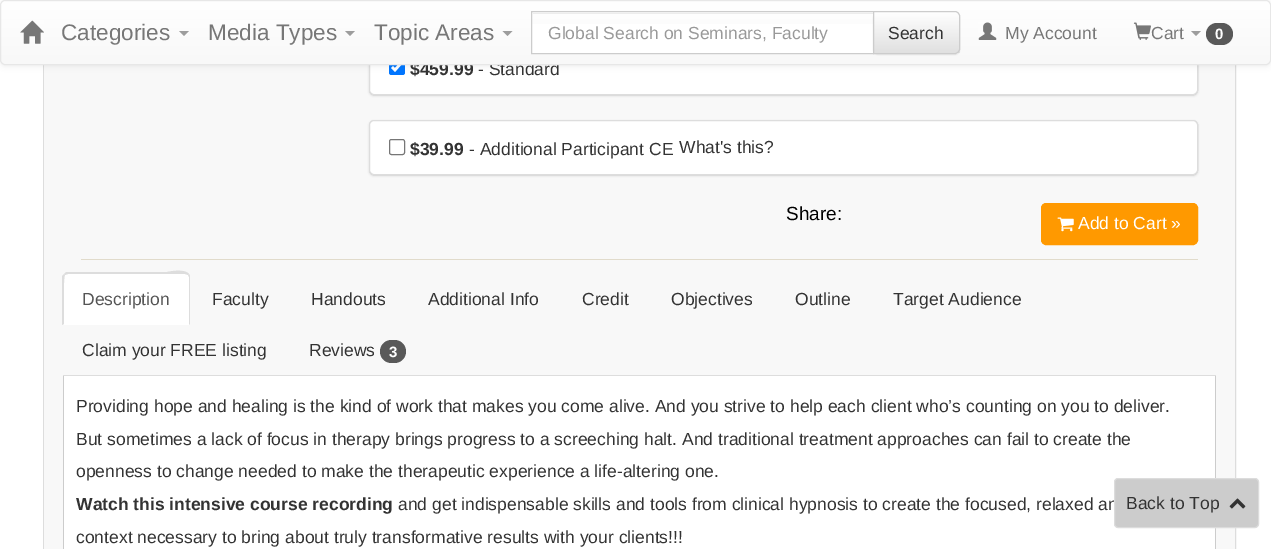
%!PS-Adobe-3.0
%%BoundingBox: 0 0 1271 549
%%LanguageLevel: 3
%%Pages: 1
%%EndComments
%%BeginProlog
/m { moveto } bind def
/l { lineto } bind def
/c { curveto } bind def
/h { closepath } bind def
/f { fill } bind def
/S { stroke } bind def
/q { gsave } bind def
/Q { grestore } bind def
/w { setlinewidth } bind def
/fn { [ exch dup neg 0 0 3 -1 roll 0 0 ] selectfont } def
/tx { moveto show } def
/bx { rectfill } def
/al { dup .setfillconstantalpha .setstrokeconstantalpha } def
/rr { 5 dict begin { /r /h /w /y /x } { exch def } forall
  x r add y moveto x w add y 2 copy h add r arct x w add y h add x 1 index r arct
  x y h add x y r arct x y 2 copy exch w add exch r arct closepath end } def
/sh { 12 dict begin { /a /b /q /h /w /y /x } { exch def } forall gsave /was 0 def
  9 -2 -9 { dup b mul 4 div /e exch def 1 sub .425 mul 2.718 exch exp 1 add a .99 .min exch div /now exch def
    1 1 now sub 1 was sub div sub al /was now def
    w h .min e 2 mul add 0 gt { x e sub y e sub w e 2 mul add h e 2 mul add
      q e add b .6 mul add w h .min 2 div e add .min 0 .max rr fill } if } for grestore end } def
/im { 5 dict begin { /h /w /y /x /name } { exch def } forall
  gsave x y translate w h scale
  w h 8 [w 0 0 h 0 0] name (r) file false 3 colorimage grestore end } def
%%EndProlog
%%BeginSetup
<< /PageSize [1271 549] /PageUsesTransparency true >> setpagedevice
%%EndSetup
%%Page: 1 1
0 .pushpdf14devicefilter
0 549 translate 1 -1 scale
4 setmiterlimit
1 setgray
0 0 1271 549 bx
0.867 setgray
43.5 -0.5 1192 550 rectstroke
0.973 setgray
44 65 1191 484 bx
0 setgray
369 41 829 55 5 1 0.05 sh
0.867 setgray
369.5 40.5 828 54 4.5 rr S
0 setgray
369 41 829 55 5 1 0.07 sh
1 setgray
369.5 40.5 m 1197.5 40.5 l 1197.5 90 l 1197.5 92.5 1195.5 94.5 1193 94.5 c 374 94.5 l 371.5 94.5 369.5 92.5 369.5 90 c h q f Q
0.867 setgray
S
0 0.459 1 setrgbcolor
389 59 16 16 2.5 rr f
1 setgray
2.6 w
392 67 m 395 70 l 402 62 l S
0 setgray
0 1 1271 65 5 3 0.07 sh
/LiberationSans-Bold 17.5 fn
0.2 setgray
($459.99) 410 75 tx
/LiberationSans-Regular 17.5 fn
(- Standard) 478 75 tx
q
0 0 1271 65 5 rr clip newpath
q 0 1 m 1271 1 l 1271 64 l 0 64 l h clip newpath
<< /ShadingType 2 /ColorSpace /DeviceRGB /Coords [636 1.2 636 64] /Extend [true true] /Function << /FunctionType 2 /Domain [0 1] /C0 [1 1 1] /C1 [0.973 0.973 0.973] /N 1 >> >> shfill Q
Q
0.906 setgray
1 w
0.5 0.5 1270 64 4.5 rr S
(image0.raw) 20 20 24 24 im
/LiberationSans-Regular 22.5 fn
0.467 setgray
(Categories) 61 40 tx
0.616 setgray
179 31 m 189 31 l 184 36 l h f
0.467 setgray
(Media Types) 208 40 tx
0.616 setgray
345 31 m 355 31 l 350 36 l h f
0.467 setgray
(Topic Areas) 374 40 tx
0.616 setgray
502.5 31 m 512.5 31 l 507.5 36 l h f
1 setgray
532 24 341 29 bx
0.925 setgray
533 13 340 1 bx
0.8 setgray
531.5 11.5 342 42 rectstroke
/LiberationSans-Regular 17.5 fn
0.6 setgray
(Global Search on Seminars, Faculty) 548 39 tx
0 setgray
873 13 87 42 5 0.5 0.07 sh
1 setgray
873 11 m 955 11 l 958 11 960 13 960 16 c 960 49 l 960 52 958 54 955 54 c 873 54 l h f
q
873 11 m 955 11 l 958 11 960 13 960 16 c 960 49 l 960 52 958 54 955 54 c 873 54 l h clip newpath
q 874 13 m 960 13 l 960 53 l 874 53 l h clip newpath
<< /ShadingType 2 /ColorSpace /DeviceRGB /Coords [916 12 916 53] /Extend [true true] /Function << /FunctionType 2 /Domain [0 1] /C0 [1 1 1] /C1 [0.878 0.878 0.878] /N 1 >> >> shfill Q
Q
0.8 setgray
873.5 11.5 m 955 11.5 l 957.5 11.5 959.5 13.5 959.5 16 c 959.5 49 l 959.5 51.5 957.5 53.5 955 53.5 c 873.5 53.5 l h S
0.2 setgray
(Search) 888 39 tx
(image1.raw) 978 22 19 18 im
0.467 setgray
(My Account) 1005 39 tx
(image2.raw) 1133 22 18 18 im
(Cart) 1151 39 tx
0.616 setgray
1191 31 m 1201 31 l 1196 36 l h f
0.349 setgray
1206 23 27 22 11 rr f
/LiberationSans-Bold 15 fn
1 setgray
(0) 1215 39 tx
0 setgray
369 121 829 55 5 1 0.05 sh
0.867 setgray
369.5 120.5 828 54 4.5 rr S
0 setgray
369 121 829 55 5 1 0.07 sh
1 setgray
369.5 120.5 828 54 4.5 rr q f Q
0.867 setgray
S
0.463 setgray
389.5 139.5 15 15 2 rr S
/LiberationSans-Bold 17.5 fn
0.2 setgray
($39.99) 410 155 tx
/LiberationSans-Regular 17.5 fn
(- Additional Participant CE) 469 155 tx
(What's this?) 679 153 tx
/LiberationSans-Regular 19 fn
0 setgray
(Share:) 786 220 tx
1 0.6 0 setrgbcolor
1041.5 203.5 156 41 4.5 rr q f Q
S
(image3.raw) 1057 217 17 15 im
/LiberationSans-Regular 17.5 fn
1 setgray
(Add to Cart ») 1078 229 tx
0.882 0.859 0.796 setrgbcolor
81 259 1117 1 bx
0.867 setgray
63 375 1153 1 bx
1 setgray
68 273 m 185 273 l 188 273 190 275 190 278 c 190 325 l 63 325 l 63 278 l 63 275 65 273 68 273 c h f
0.867 setgray
68 274 m 65 275 l 64 274 l 66 272 l 167 272 l 167 272 184 268 189 274 c 188 275 l 185 274 l h f
190 325 m 190 278 l 190 276 190 275 189 274 c 188 275 l 189 277 l 189 324 l h f
62 325 m 62 276 l 64 274 l 65 275 l 63 277 64 318 64 324 c h f
0.333 setgray
(Description) 82 305 tx
0.2 setgray
(Faculty) 212 305 tx
(Handouts) 311 305 tx
(Additional Info) 428 305 tx
(Credit) 582 305 tx
(Objectives) 671 305 tx
(Outline) 795 305 tx
(Target Audience) 893 305 tx
(Claim your FREE listing) 82 356 tx
(Reviews) 309 356 tx
0.349 setgray
380 340 26 23 11.5 rr f
/LiberationSans-Bold 15 fn
1 setgray
(3) 389 357 tx
64 376 1151 173 bx
0.8 setgray
1215 376 1 173 bx
63 376 1 173 bx
/LiberationSans-Regular 17.5 fn
0.2 setgray
(Providing hope and healing is the kind of work that makes you come alive. And you strive to help each client who’s counting on you to deliver.) 76 412 tx
(But sometimes a lack of focus in therapy brings progress to a screeching halt. And traditional treatment approaches can fail to create the) 76 445 tx
(openness to change needed to make the therapeutic experience a life-altering one.) 76 477 tx
/LiberationSans-Bold 17.5 fn
(Watch this intensive course recording) 76 510 tx
/LiberationSans-Regular 17.5 fn
(and get indispensable skills and tools from clinical hypnosis to create the focused, relaxed an) 398 510 tx
(context necessary to bring about truly transformative results with your clients!!!) 76 543 tx
0.1 al
1 setgray
1114 525 m 1114 527 1116 529 1118 529 c 1255 529 l 1257 529 1259 527 1259 525 c 1259 482 l 1259 524 l 1259 526 1257 528 1255 528 c 1118 528 l 1116 528 1115 527 1114 525 c h f
1 al
0.8 setgray
1114.5 478.5 144 49 3.5 rr q f Q
0.863 setgray
S
0.2 setgray
(Back to Top) 1126 509 tx
(image4.raw) 1229 498 17 11 im
.poppdf14devicefilter showpage
%%EOF
